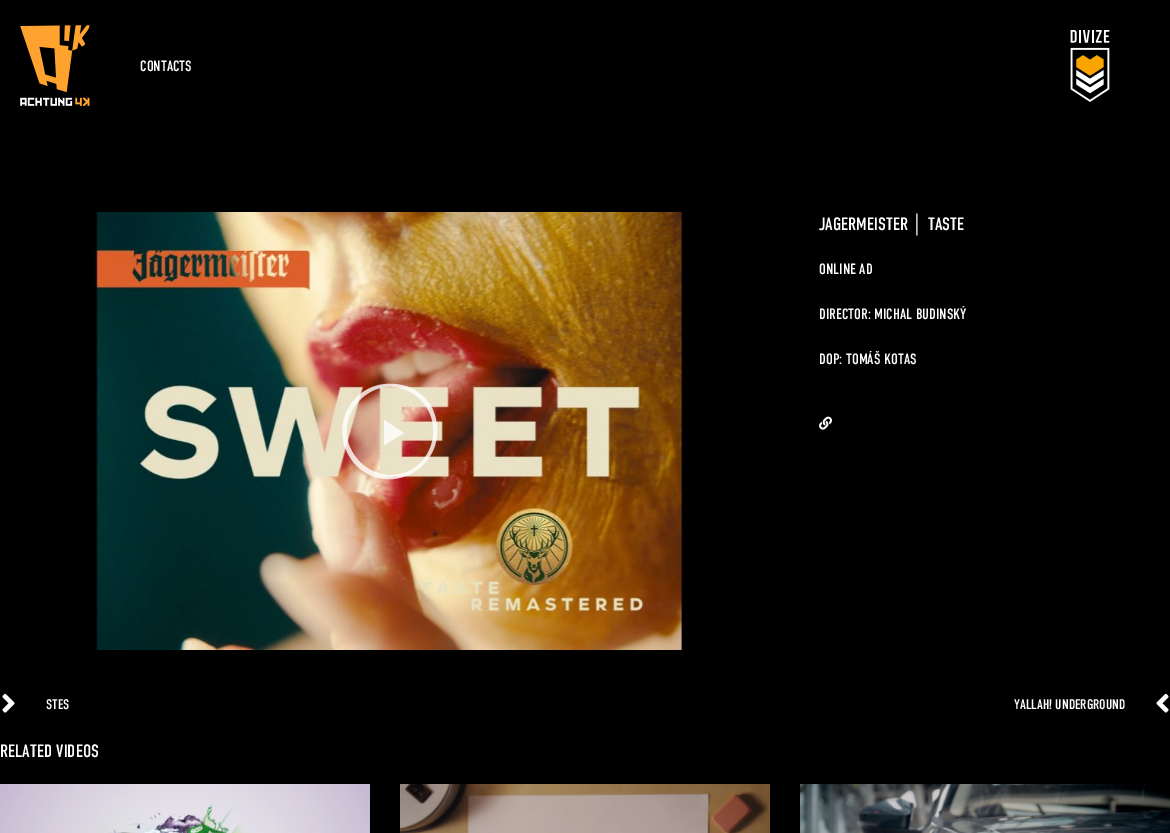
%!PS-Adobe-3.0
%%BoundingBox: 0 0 1170 833
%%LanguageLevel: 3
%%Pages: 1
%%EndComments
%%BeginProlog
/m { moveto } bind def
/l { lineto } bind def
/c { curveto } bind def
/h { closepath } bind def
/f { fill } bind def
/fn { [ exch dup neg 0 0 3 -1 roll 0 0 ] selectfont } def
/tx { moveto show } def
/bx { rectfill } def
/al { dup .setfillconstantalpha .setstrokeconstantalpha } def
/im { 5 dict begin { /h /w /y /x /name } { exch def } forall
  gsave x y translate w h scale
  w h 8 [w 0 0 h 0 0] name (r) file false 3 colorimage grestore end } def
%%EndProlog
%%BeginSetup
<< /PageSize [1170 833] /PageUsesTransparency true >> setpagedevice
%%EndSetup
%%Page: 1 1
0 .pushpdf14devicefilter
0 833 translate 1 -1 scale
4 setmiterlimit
0 setgray
0 0 1170 833 bx
(image0.raw) 20 25 70 81 im
/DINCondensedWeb-Regular 15 fn
1 setgray
(CONTACTS) 140 71 tx
(image1.raw) 1070 30 40 72 im
(image2.raw) 92 212 591 438 im
0.8 al
424 397 m 416 389 406 385 395 384 c 350 380 325 432 356 465 c 387 497 441 471 437 426 c 436 415 432 405 424 397 c h 421 400 m 448 429 428 477 388 475 c 378 474 368 470 361 463 c 319 422 378 359 421 400 c h 384 420 m 384 445 l 404 433 l h f
/DINCondensedWeb-Regular 18 fn
1 al
(JAGERMEISTER) 819 230 tx
/LiberationSans-Regular 18 fn
(│) 912 230 tx
/DINCondensedWeb-Regular 18 fn
(TASTE) 928 230 tx
/DINCondensedWeb-Regular 15 fn
(ONLINE AD) 819 274 tx
(DIRECTOR: MICHAL BUDINSKÝ) 819 319 tx
(DOP: TOMÁŠ KOTAS) 819 364 tx
(image3.raw) 819 416 13 14 im
(image4.raw) 2 693 13 20 im
/DINCondensedWeb-Regular 14 fn
(STES) 46 709 tx
(YALLAH! UNDERGROUND) 1014 709 tx
(image5.raw) 1156 693 13 20 im
/DINCondensedWeb-Regular 18 fn
(RELATED VIDEOS) 0 757 tx
(image6.raw) 0 784 370 49 im
(image7.raw) 400 784 370 49 im
(image8.raw) 800 784 370 49 im
.poppdf14devicefilter showpage
%%EOF
